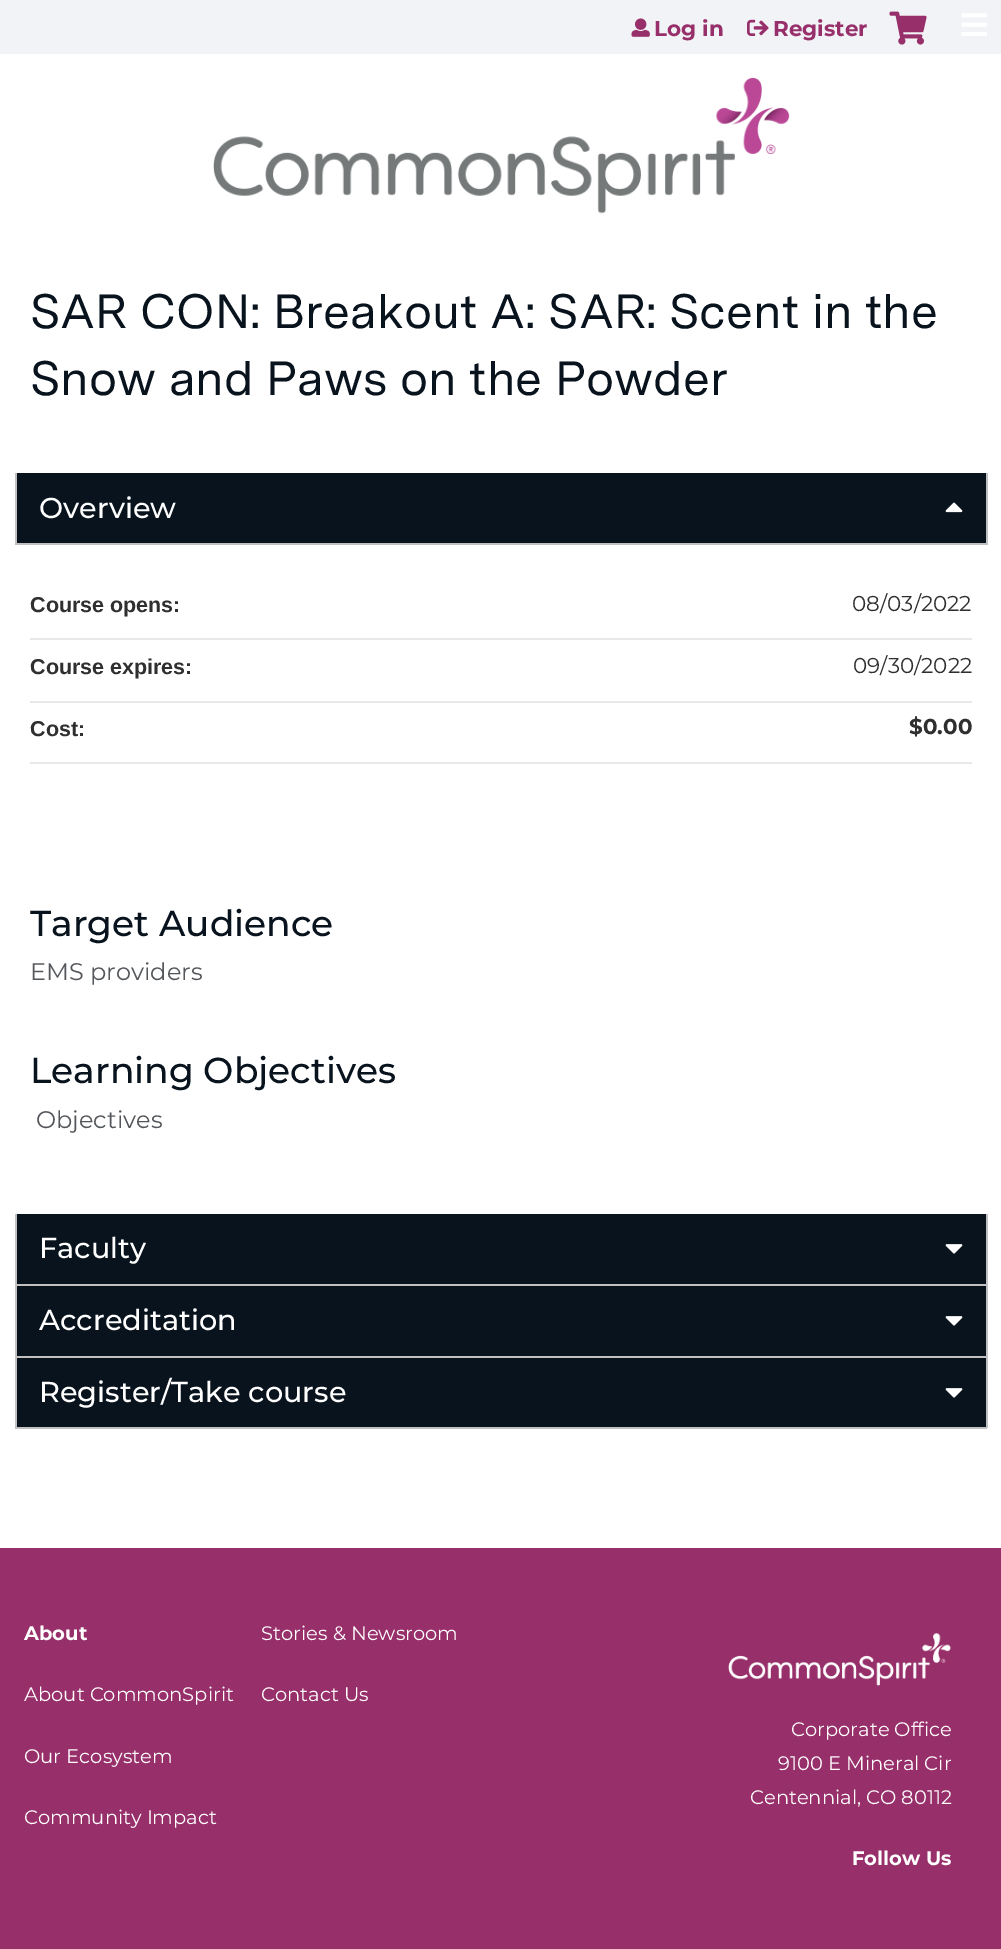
%!PS-Adobe-3.0
%%BoundingBox: 0 0 1001 1949
%%LanguageLevel: 3
%%Pages: 1
%%EndComments
%%BeginProlog
/fn { [ exch dup neg 0 0 3 -1 roll 0 0 ] selectfont } def
/tx { moveto show } def
/bx { rectfill } def
/im { 5 dict begin { /h /w /y /x /name } { exch def } forall
  gsave x y translate w h scale
  w h 8 [w 0 0 h 0 0] name (r) file false 3 colorimage grestore end } def
%%EndProlog
%%BeginSetup
<< /PageSize [1001 1949] >> setpagedevice
%%EndSetup
%%Page: 1 1
0 1949 translate 1 -1 scale
4 setmiterlimit
1 setgray
0 0 1001 1949 bx
0.949 0.953 0.969 setrgbcolor
0 0 1001 54 bx
(image0.raw) 631 18 19 19 im
/Montserrat-Bold 21.5 fn
0.592 0.184 0.416 setrgbcolor
(Log in) 654 36 tx
(image1.raw) 747 19 22 17 im
(Register) 773 36 tx
(image2.raw) 889 11 38 34 im
(image3.raw) 961 13 26 23 im
(image4.raw) 213 77 577 137 im
/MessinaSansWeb-Regular 48 fn
0.031 0.075 0.118 setrgbcolor
(SAR CON: Breakout A: SAR: Scent in the) 30 328 tx
(Snow and Paws on the Powder) 30 395 tx
17 473 969 70 bx
0.757 setgray
986 473 2 72 bx
15 543 972 2 bx
15 473 2 72 bx
/Montserrat-Medium 28.75 fn
1 setgray
(Overview) 39 518 tx
(image5.raw) 945 502 18 11 im
0.91 setgray
30 638 942 2 bx
/LiberationSans-Bold 21.5 fn
0.184 setgray
(Course opens:) 30 612 tx
/Montserrat-Regular 21.5 fn
(08/03/2022) 852 611 tx
0.91 setgray
30 701 942 2 bx
/LiberationSans-Bold 21.5 fn
0.184 setgray
(Course expires:) 30 674 tx
/Montserrat-Regular 21.5 fn
(09/30/2022) 853 673 tx
0.91 setgray
30 762 942 2 bx
/LiberationSans-Bold 21.5 fn
0.184 setgray
(Cost:) 30 736 tx
/Montserrat-Bold 21.5 fn
($0.00) 909 734 tx
/Montserrat-Medium 36 fn
0.031 0.075 0.118 setrgbcolor
(Target Audience) 30 936 tx
/Montserrat-Regular 24 fn
0.325 0.337 0.353 setrgbcolor
(EMS providers) 30 980 tx
/Montserrat-Medium 36 fn
0.031 0.075 0.118 setrgbcolor
(Learning Objectives) 30 1083 tx
/Montserrat-Regular 24 fn
0.325 0.337 0.353 setrgbcolor
(Objectives) 36 1128 tx
0.031 0.075 0.118 setrgbcolor
17 1214 969 70 bx
0.757 setgray
986 1214 2 214 bx
15 1284 972 2 bx
15 1214 2 72 bx
/Montserrat-Medium 28.75 fn
1 setgray
(Faculty) 39 1258 tx
(image6.raw) 945 1244 18 10 im
0.031 0.075 0.118 setrgbcolor
17 1286 969 70 bx
0.757 setgray
15 1356 972 2 bx
15 1286 2 72 bx
1 setgray
(Accreditation) 39 1330 tx
(image6.raw) 945 1316 18 10 im
0.031 0.075 0.118 setrgbcolor
17 1358 969 69 bx
0.757 setgray
15 1427 972 2 bx
15 1358 2 70 bx
1 setgray
(Register/Take course) 39 1402 tx
(image6.raw) 945 1388 18 10 im
0.592 0.184 0.416 setrgbcolor
0 1548 1001 401 bx
/Montserrat-Bold 19.5 fn
1 setgray
(About) 24 1640 tx
/Montserrat-Regular 19.5 fn
(About CommonSpirit) 24 1701 tx
(Our Ecosystem) 24 1763 tx
(Community Impact) 24 1824 tx
(Stories & Newsroom) 261 1640 tx
(Contact Us) 261 1701 tx
(image7.raw) 728 1633 223 53 im
(Corporate Office) 791 1736 tx
(9100 E Mineral Cir) 778 1770 tx
(Centennial, CO 80112) 750 1804 tx
/Montserrat-Bold 19.5 fn
(Follow Us) 852 1865 tx
showpage
%%EOF
